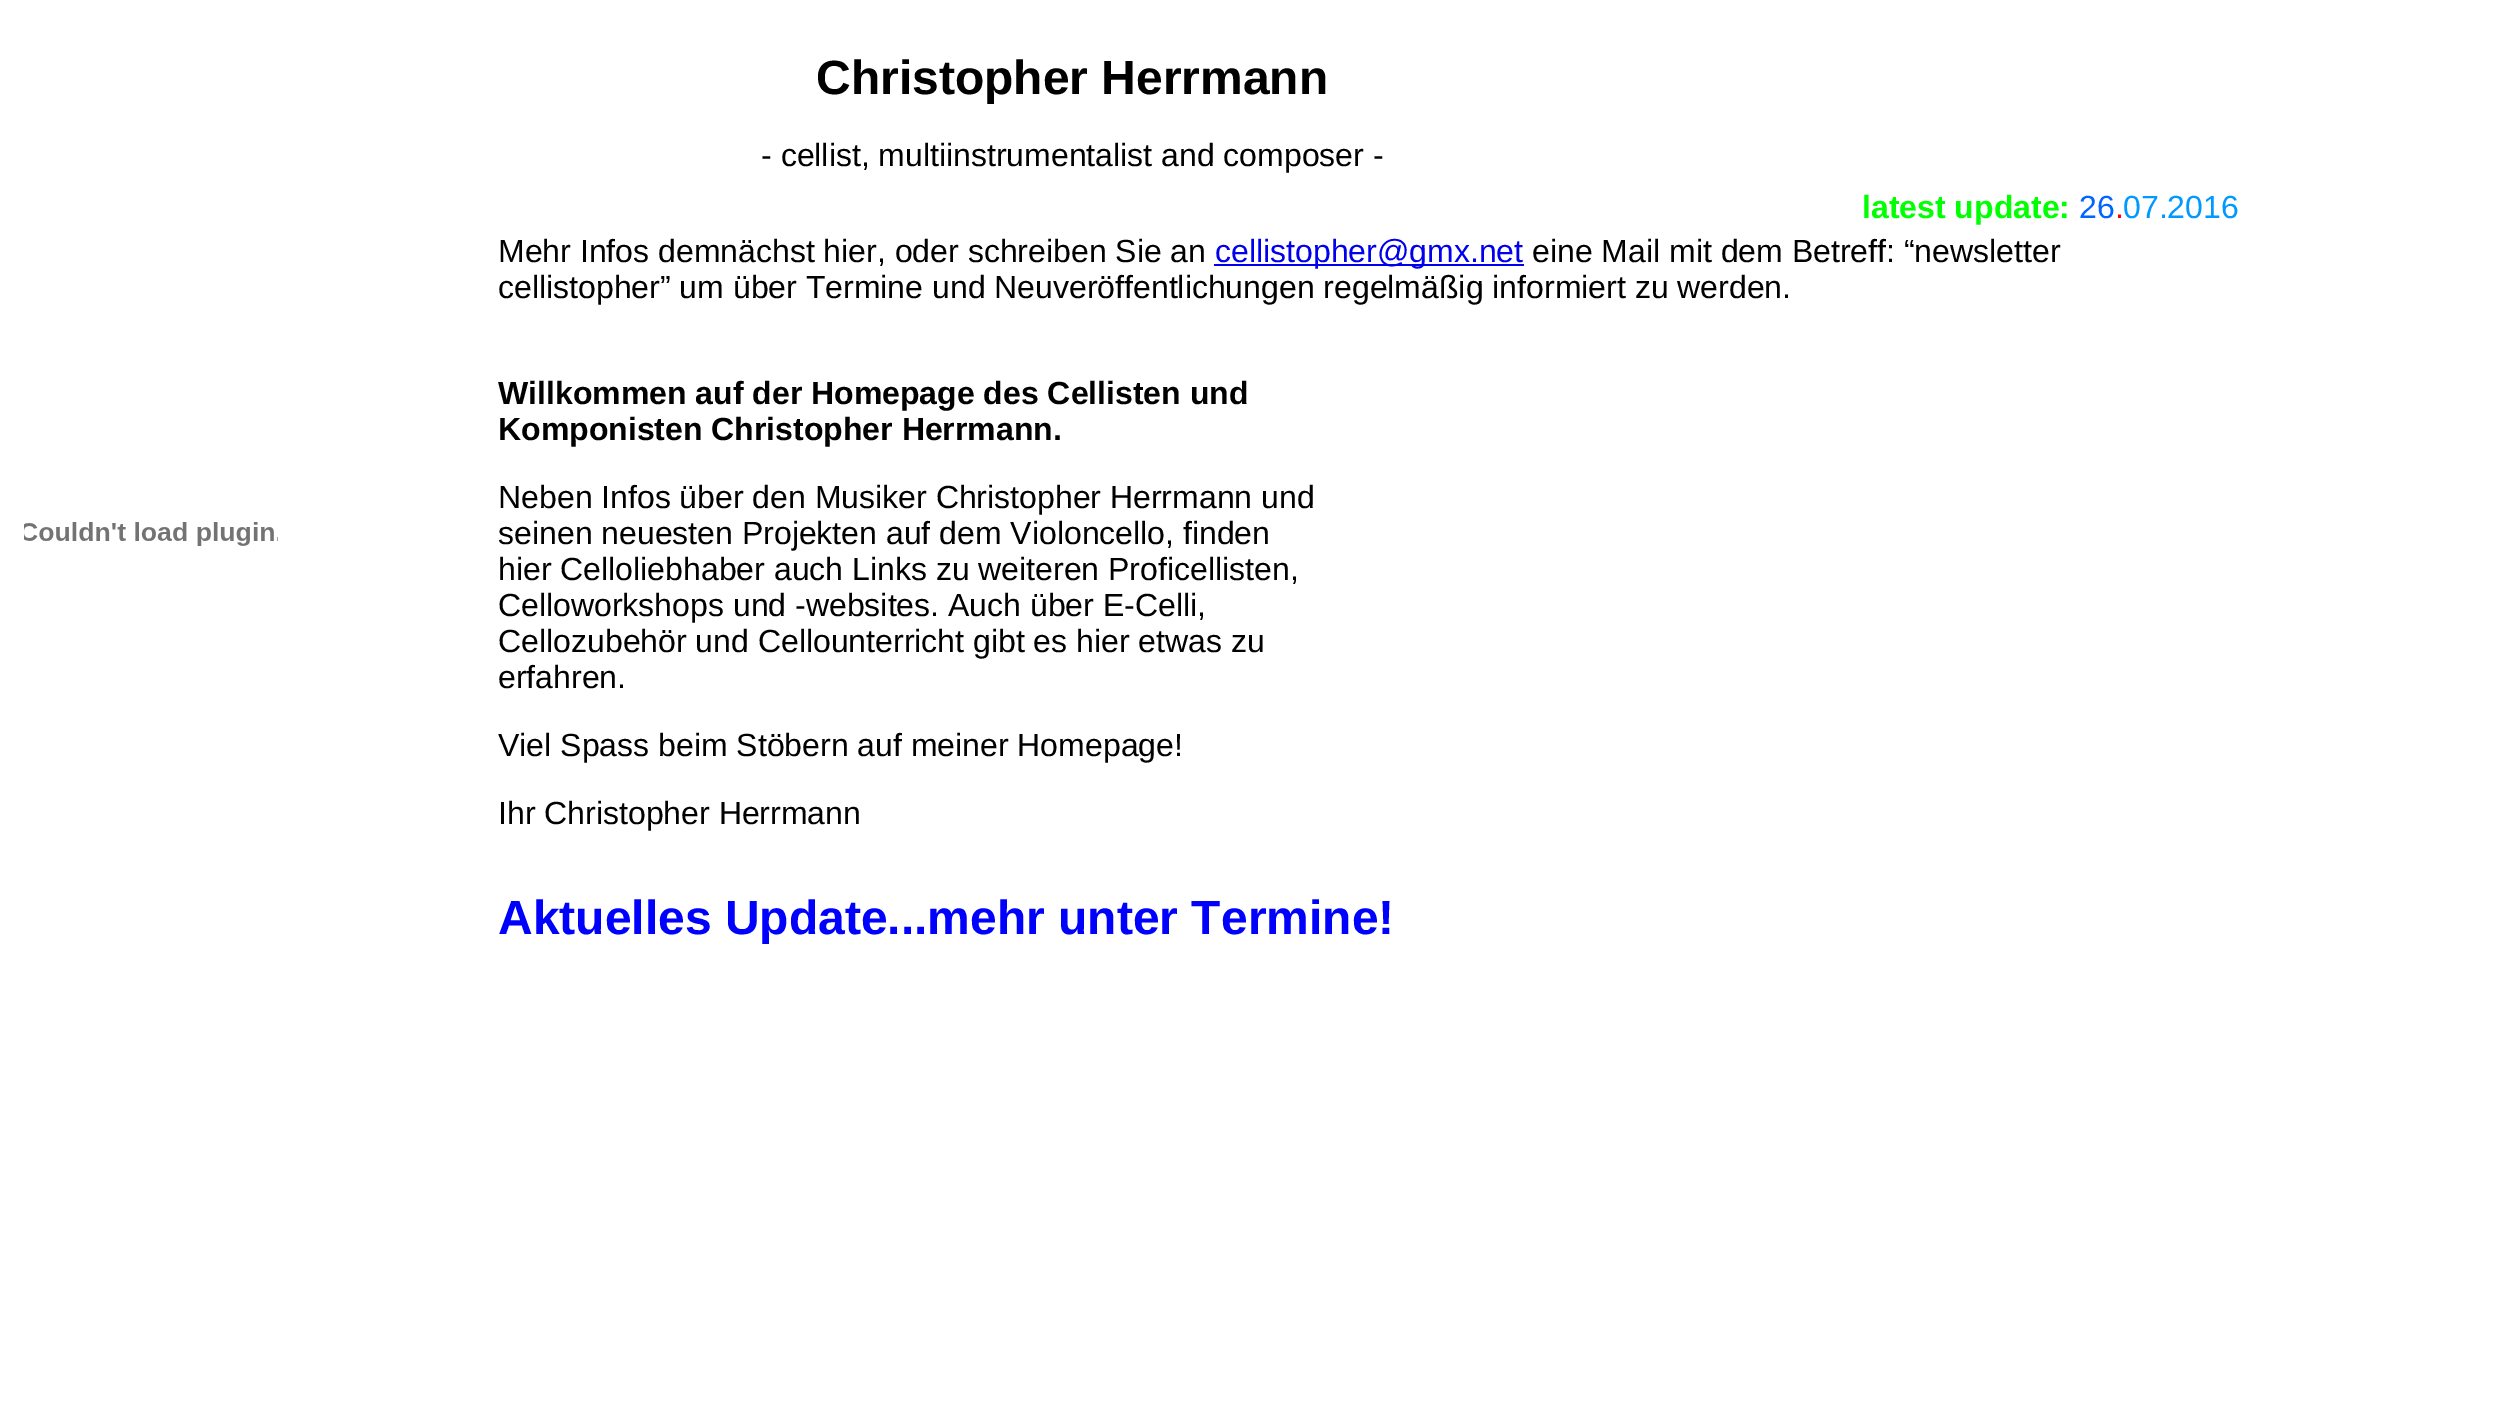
%!PS-Adobe-3.0
%%BoundingBox: 0 0 2506 1405
%%LanguageLevel: 3
%%Pages: 1
%%EndComments
%%BeginProlog
/fn { [ exch dup neg 0 0 3 -1 roll 0 0 ] selectfont } def
/tx { moveto show } def
/bx { rectfill } def
/im { 5 dict begin { /h /w /y /x /name } { exch def } forall
  gsave x y translate w h scale
  w h 8 [w 0 0 h 0 0] name (r) file false 3 colorimage grestore end } def
%%EndProlog
%%BeginSetup
<< /PageSize [2506 1405] >> setpagedevice
%%EndSetup
%%Page: 1 1
0 1405 translate 1 -1 scale
4 setmiterlimit
1 setgray
0 0 2506 1405 bx
(image0.raw) 24 522 254 24 im
/LiberationSans-Bold 48 fn
0 setgray
(Christopher Herrmann) 816 94 tx
/LiberationSans-Regular 32 fn
(- cellist, multiinstrumentalist and composer -) 761 166 tx
/LiberationSans-Bold 32 fn
0 1 0 setrgbcolor
(latest update:) 1862 218 tx
/LiberationSans-Regular 32 fn
0 0.4 1 setrgbcolor
(26) 2079 218 tx
1 0 0 setrgbcolor
(.) 2115 218 tx
0 0.6 1 setrgbcolor
(07.2016) 2123 218 tx
0 setgray
(Mehr Infos demnächst hier, oder schreiben Sie an) 498 262 tx
0 0 0.933 setrgbcolor
1214 264 310 2 bx
(cellistopher@gmx.net) 1215 262 tx
0 setgray
(eine Mail mit dem Betreff: “newsletter) 1532 262 tx
(cellistopher” um über Termine und Neuveröffentlichungen regelmäßig informiert zu werden.) 498 298 tx
/LiberationSans-Bold 32 fn
(Willkommen auf der Homepage des Cellisten und) 498 404 tx
(Komponisten Christopher Herrmann.) 498 440 tx
/LiberationSans-Regular 32 fn
(Neben Infos über den Musiker Christopher Herrmann und) 498 508 tx
(seinen neuesten Projekten auf dem Violoncello, finden) 498 544 tx
(hier Celloliebhaber auch Links zu weiteren Proficellisten,) 498 580 tx
(Celloworkshops und -websites. Auch über E-Celli,) 498 616 tx
(Cellozubehör und Cellounterricht gibt es hier etwas zu) 498 652 tx
(erfahren.) 498 688 tx
(Viel Spass beim Stöbern auf meiner Homepage!) 498 756 tx
(Ihr Christopher Herrmann) 498 824 tx
/LiberationSans-Bold 48 fn
0 0 1 setrgbcolor
(Aktuelles Update...mehr unter Termine!) 498 934 tx
showpage
%%EOF
